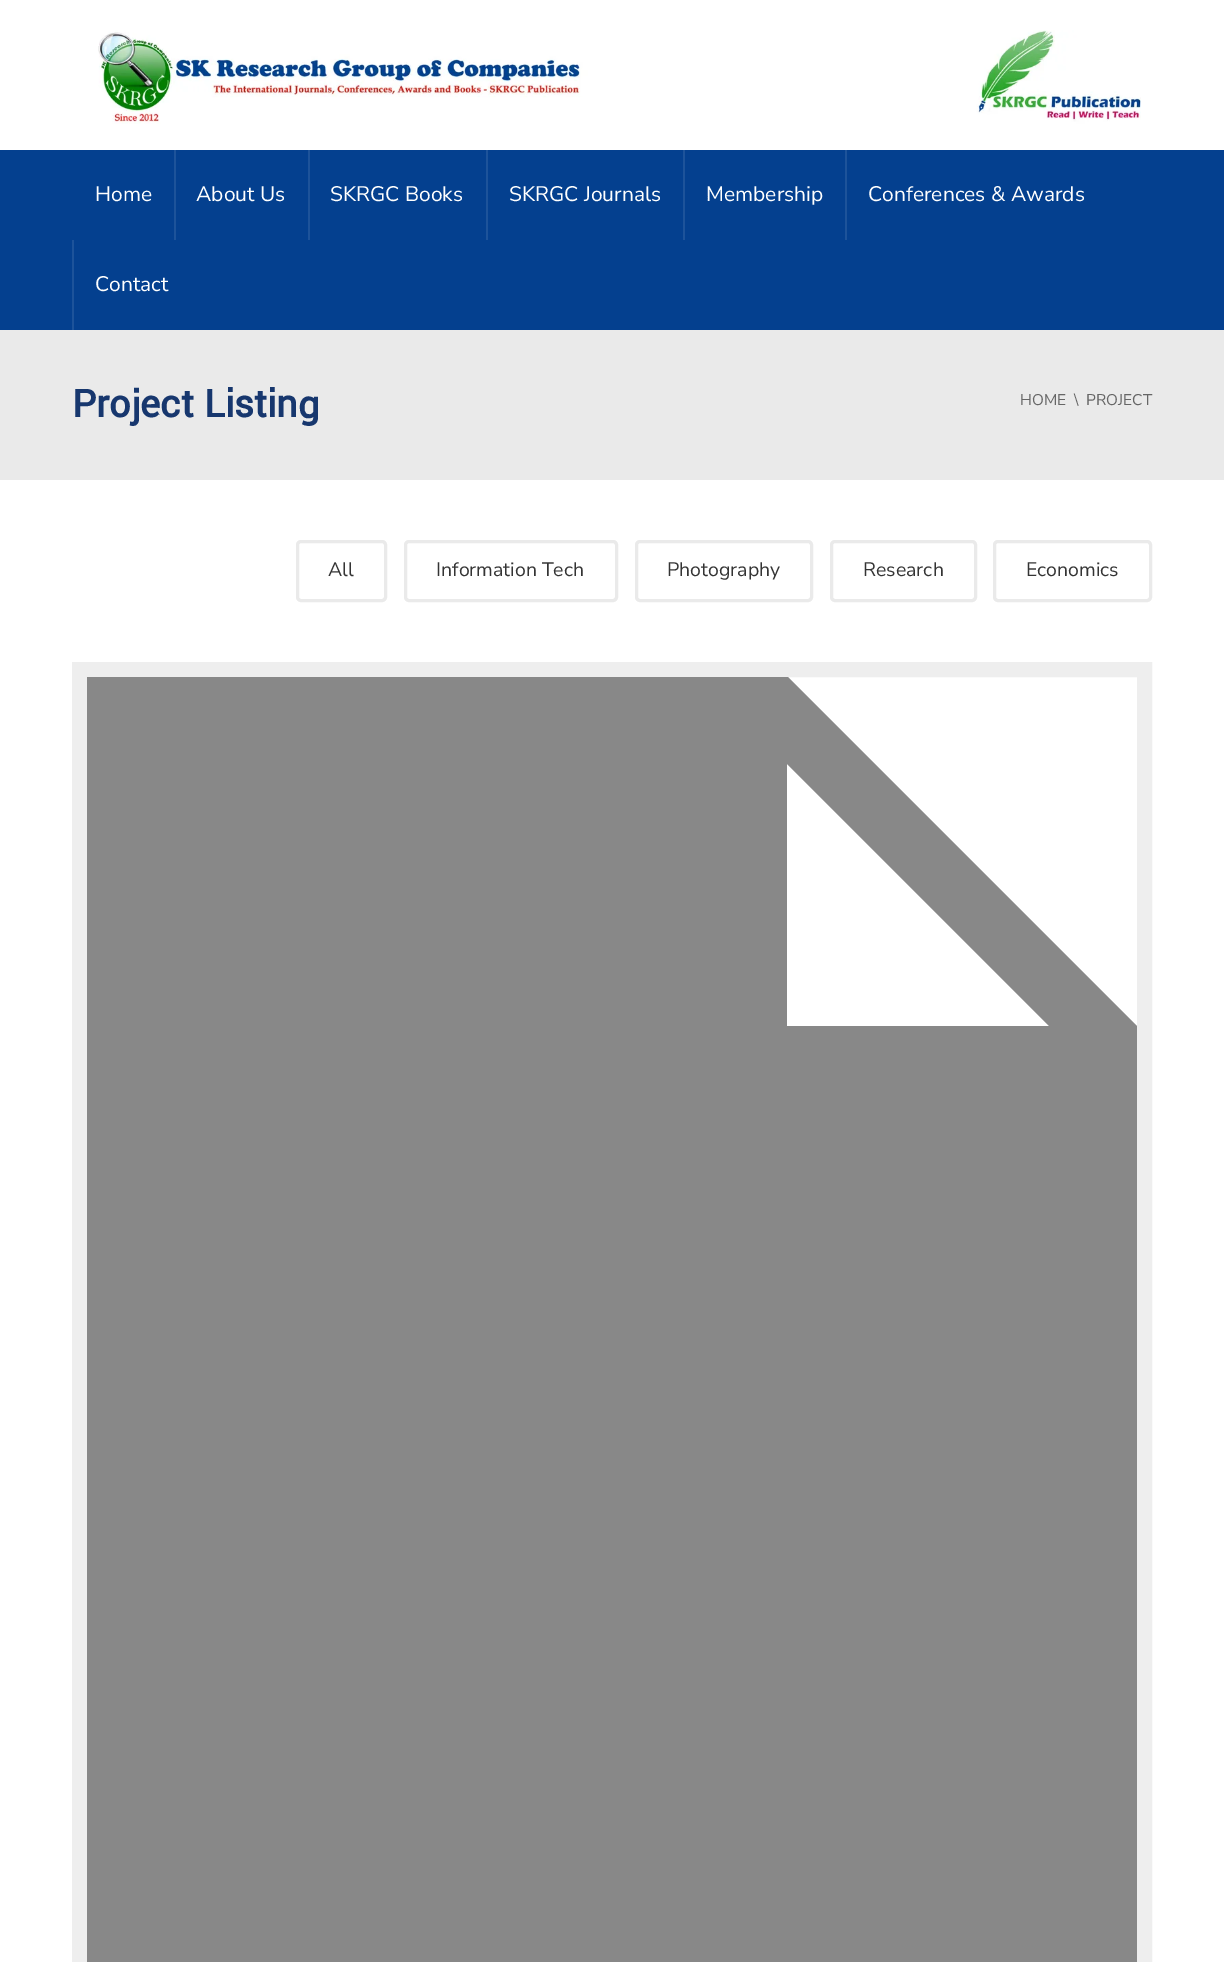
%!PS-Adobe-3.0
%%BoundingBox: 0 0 1224 1962
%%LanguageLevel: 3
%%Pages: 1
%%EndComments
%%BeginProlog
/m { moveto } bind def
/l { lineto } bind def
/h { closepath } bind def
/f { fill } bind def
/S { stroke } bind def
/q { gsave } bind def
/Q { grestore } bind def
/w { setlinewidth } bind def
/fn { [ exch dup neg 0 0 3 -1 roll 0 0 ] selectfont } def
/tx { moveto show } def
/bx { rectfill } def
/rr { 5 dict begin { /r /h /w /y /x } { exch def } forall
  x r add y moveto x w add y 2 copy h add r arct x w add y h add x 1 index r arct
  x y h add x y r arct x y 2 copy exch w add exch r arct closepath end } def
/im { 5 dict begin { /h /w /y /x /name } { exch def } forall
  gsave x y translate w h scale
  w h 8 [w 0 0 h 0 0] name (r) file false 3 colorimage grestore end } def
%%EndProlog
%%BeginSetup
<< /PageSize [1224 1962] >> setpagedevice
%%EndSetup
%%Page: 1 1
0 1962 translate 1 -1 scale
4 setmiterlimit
1 setgray
0 0 1224 1962 bx
(image0.raw) 98 30 1043 94 im
0.016 0.251 0.561 setrgbcolor
0 150 1224 180 bx
/NunitoSans-ExtraLight 21 fn
1 setgray
(Home) 95 201 tx
0.114 0.325 0.604 setrgbcolor
174 150 2 90 bx
1 setgray
(About Us) 196 201 tx
0.114 0.325 0.604 setrgbcolor
308 150 2 90 bx
1 setgray
(SKRGC Books) 330 201 tx
0.114 0.325 0.604 setrgbcolor
486 150 2 90 bx
1 setgray
(SKRGC Journals) 509 201 tx
0.114 0.325 0.604 setrgbcolor
683 150 2 90 bx
1 setgray
(Membership) 706 201 tx
0.114 0.325 0.604 setrgbcolor
845 150 2 90 bx
1 setgray
(Conferences & Awards) 868 201 tx
0.114 0.325 0.604 setrgbcolor
72 240 2 90 bx
1 setgray
(Contact) 95 291 tx
0.918 setgray
0 330 1224 150 bx
/Yantramanav-Bold 42 fn
0.09 0.216 0.431 setrgbcolor
(Project Listing) 72 417 tx
/NunitoSans-ExtraLight 15.5 fn
0.4 setgray
(HOME) 1020 405 tx
(\\) 1074 405 tx
(PROJECT) 1086 405 tx
0.918 setgray
3 w
297.5 541.5 88 59 3.5 rr S
/NunitoSans-ExtraLight 19.5 fn
0.204 setgray
(All) 328 576 tx
0.918 setgray
405.5 541.5 211 59 3.5 rr S
0.204 setgray
(Information Tech) 436 576 tx
0.918 setgray
636.5 541.5 175 59 3.5 rr S
0.204 setgray
(Photography) 667 576 tx
0.918 setgray
831.5 541.5 144 59 3.5 rr S
0.204 setgray
(Research) 863 576 tx
0.918 setgray
994.5 541.5 156 59 3.5 rr S
0.204 setgray
(Economics) 1026 576 tx
0.933 setgray
15 w
79.5 669.5 1065 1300 rectstroke
q
87 677 1050 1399 rectclip
0.533 setgray
787 676 m 87 676 l 87 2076 l 1137 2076 l 1137 1026 l h 787 1026 m 787 764 l 1049 1026 l h f
Q
showpage
%%EOF
